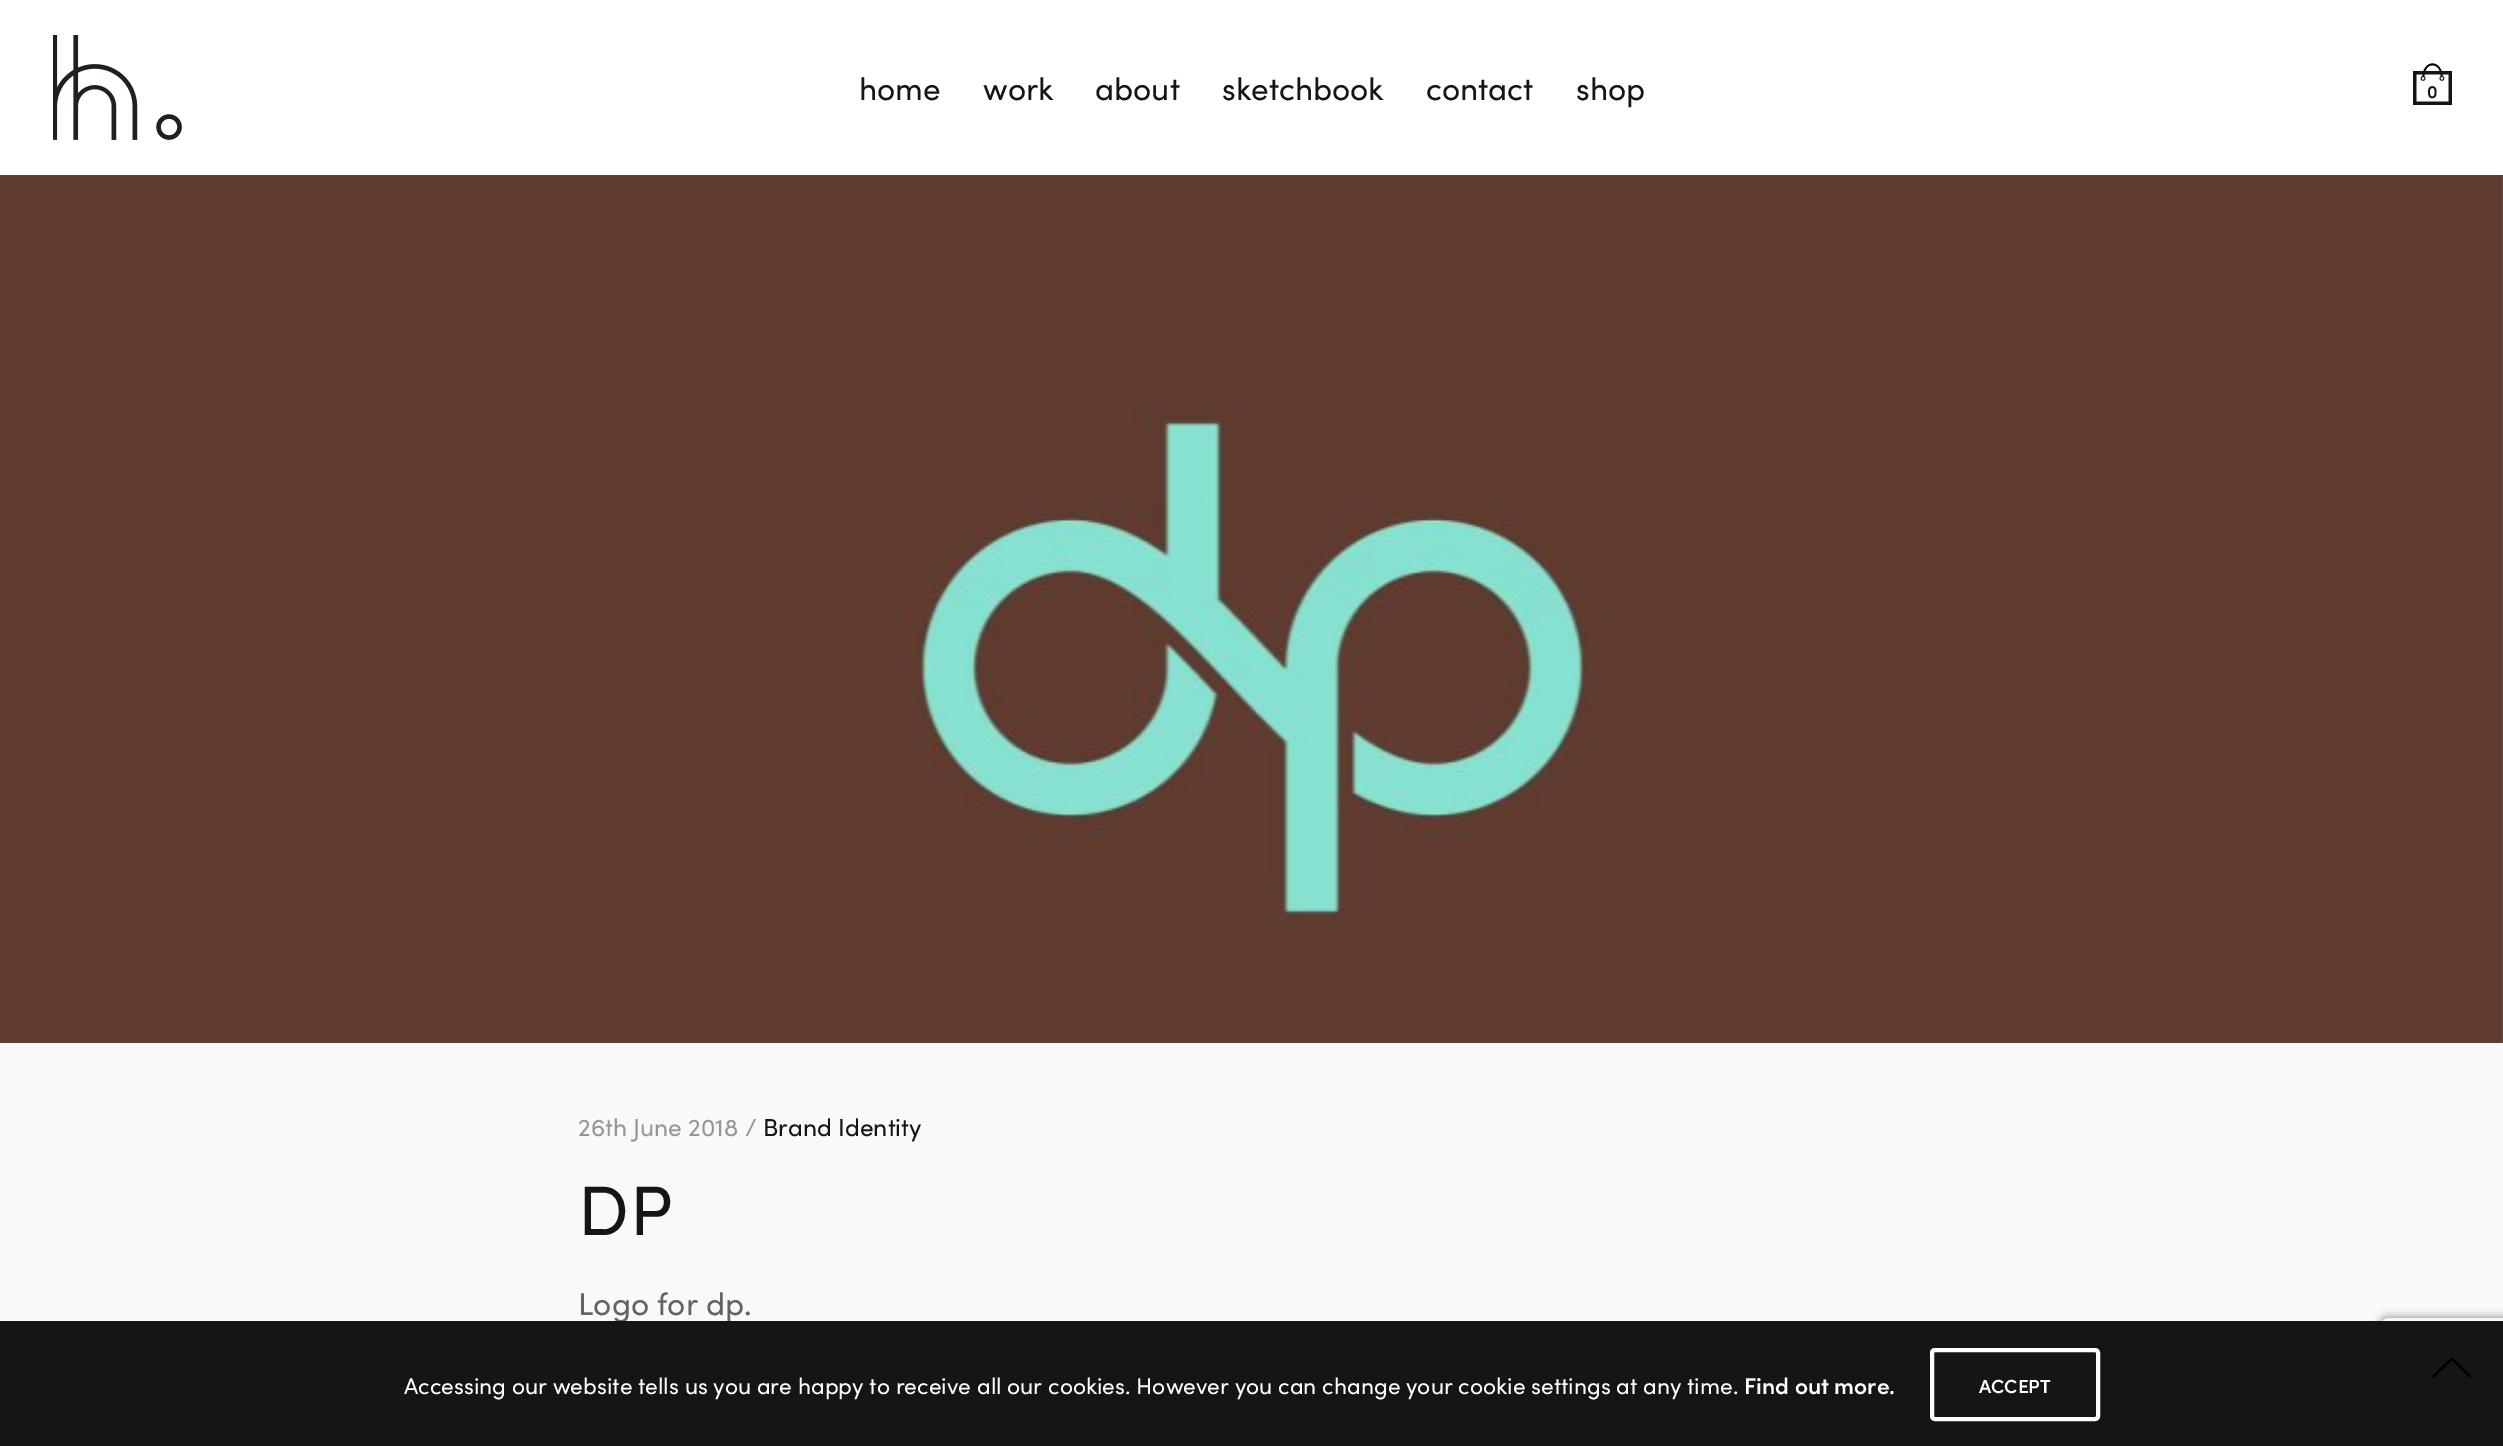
%!PS-Adobe-3.0
%%BoundingBox: 0 0 2503 1446
%%LanguageLevel: 3
%%Pages: 1
%%EndComments
%%BeginProlog
/m { moveto } bind def
/l { lineto } bind def
/c { curveto } bind def
/h { closepath } bind def
/S { stroke } bind def
/q { gsave } bind def
/Q { grestore } bind def
/w { setlinewidth } bind def
/fn { [ exch dup neg 0 0 3 -1 roll 0 0 ] selectfont } def
/tx { moveto show } def
/bx { rectfill } def
/al { dup .setfillconstantalpha .setstrokeconstantalpha } def
/rr { 5 dict begin { /r /h /w /y /x } { exch def } forall
  x r add y moveto x w add y 2 copy h add r arct x w add y h add x 1 index r arct
  x y h add x y r arct x y 2 copy exch w add exch r arct closepath end } def
/sh { 12 dict begin { /a /b /q /h /w /y /x } { exch def } forall gsave /was 0 def
  9 -2 -9 { dup b mul 4 div /e exch def 1 sub .425 mul 2.718 exch exp 1 add a .99 .min exch div /now exch def
    1 1 now sub 1 was sub div sub al /was now def
    w h .min e 2 mul add 0 gt { x e sub y e sub w e 2 mul add h e 2 mul add
      q e add b .6 mul add w h .min 2 div e add .min 0 .max rr fill } if } for grestore end } def
/im { 5 dict begin { /h /w /y /x /name } { exch def } forall
  gsave x y translate w h scale
  w h 8 [w 0 0 h 0 0] name (r) file false 3 colorimage grestore end } def
%%EndProlog
%%BeginSetup
<< /PageSize [2503 1446] /PageUsesTransparency true >> setpagedevice
%%EndSetup
%%Page: 1 1
0 .pushpdf14devicefilter
0 1446 translate 1 -1 scale
4 setmiterlimit
0.976 setgray
0 0 2503 1446 bx
1 setgray
0 0 2503 175 bx
(image0.raw) 53 35 129 105 im
/Sofia-Regular 31.5 fn
0.082 setgray
(home) 859 100 tx
(work) 983 100 tx
(about) 1095 100 tx
(sketchbook) 1222 100 tx
(contact) 1426 100 tx
(shop) 1576 100 tx
(image1.raw) 2413 63 39 42 im
/Sofia-SemiBold 18 fn
(0) 2427 98 tx
(image2.raw) 0 175 2503 868 im
/Sofia-Regular 24.5 fn
0.588 setgray
(26th June 2018 /) 578 1136 tx
0.082 setgray
(Brand Identity) 763 1136 tx
/Sofia-Regular 70 fn
578 1235 m 1 0 (DP) ashow
/Sofia-Regular 31.5 fn
0.388 setgray
(Logo for dp.) 578 1315 tx
q
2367 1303 m 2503 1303 l 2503 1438 l 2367 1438 l h 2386 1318 m 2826 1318 l 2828 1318 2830 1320 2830 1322 c 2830 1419 l 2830 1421 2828 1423 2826 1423 c 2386 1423 l 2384 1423 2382 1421 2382 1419 c 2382 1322 l 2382 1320 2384 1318 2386 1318 c h eoclip newpath
0.502 setgray
2382 1318 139 105 4 4.5 1 sh
Q
0.082 setgray
0 1321 2503 125 bx
0 setgray
2.2 w
2 setlinejoin
2433 1377 m 2452 1358.5 l 2470.5 1377 l S
/Sofia-Regular 22.75 fn
1 setgray
(Accessing our website tells us you are happy to receive all our cookies. However you can change your cookie settings at any time.) 404 1394 tx
/Sofia-SemiBold 22.75 fn
(Find out more.) 1744 1394 tx
4 w
0 setlinejoin
1932 1350 166 69 3 rr S
/Sofia-SemiBold 19 fn
(ACCEPT) 1979 1393 tx
.poppdf14devicefilter showpage
%%EOF
